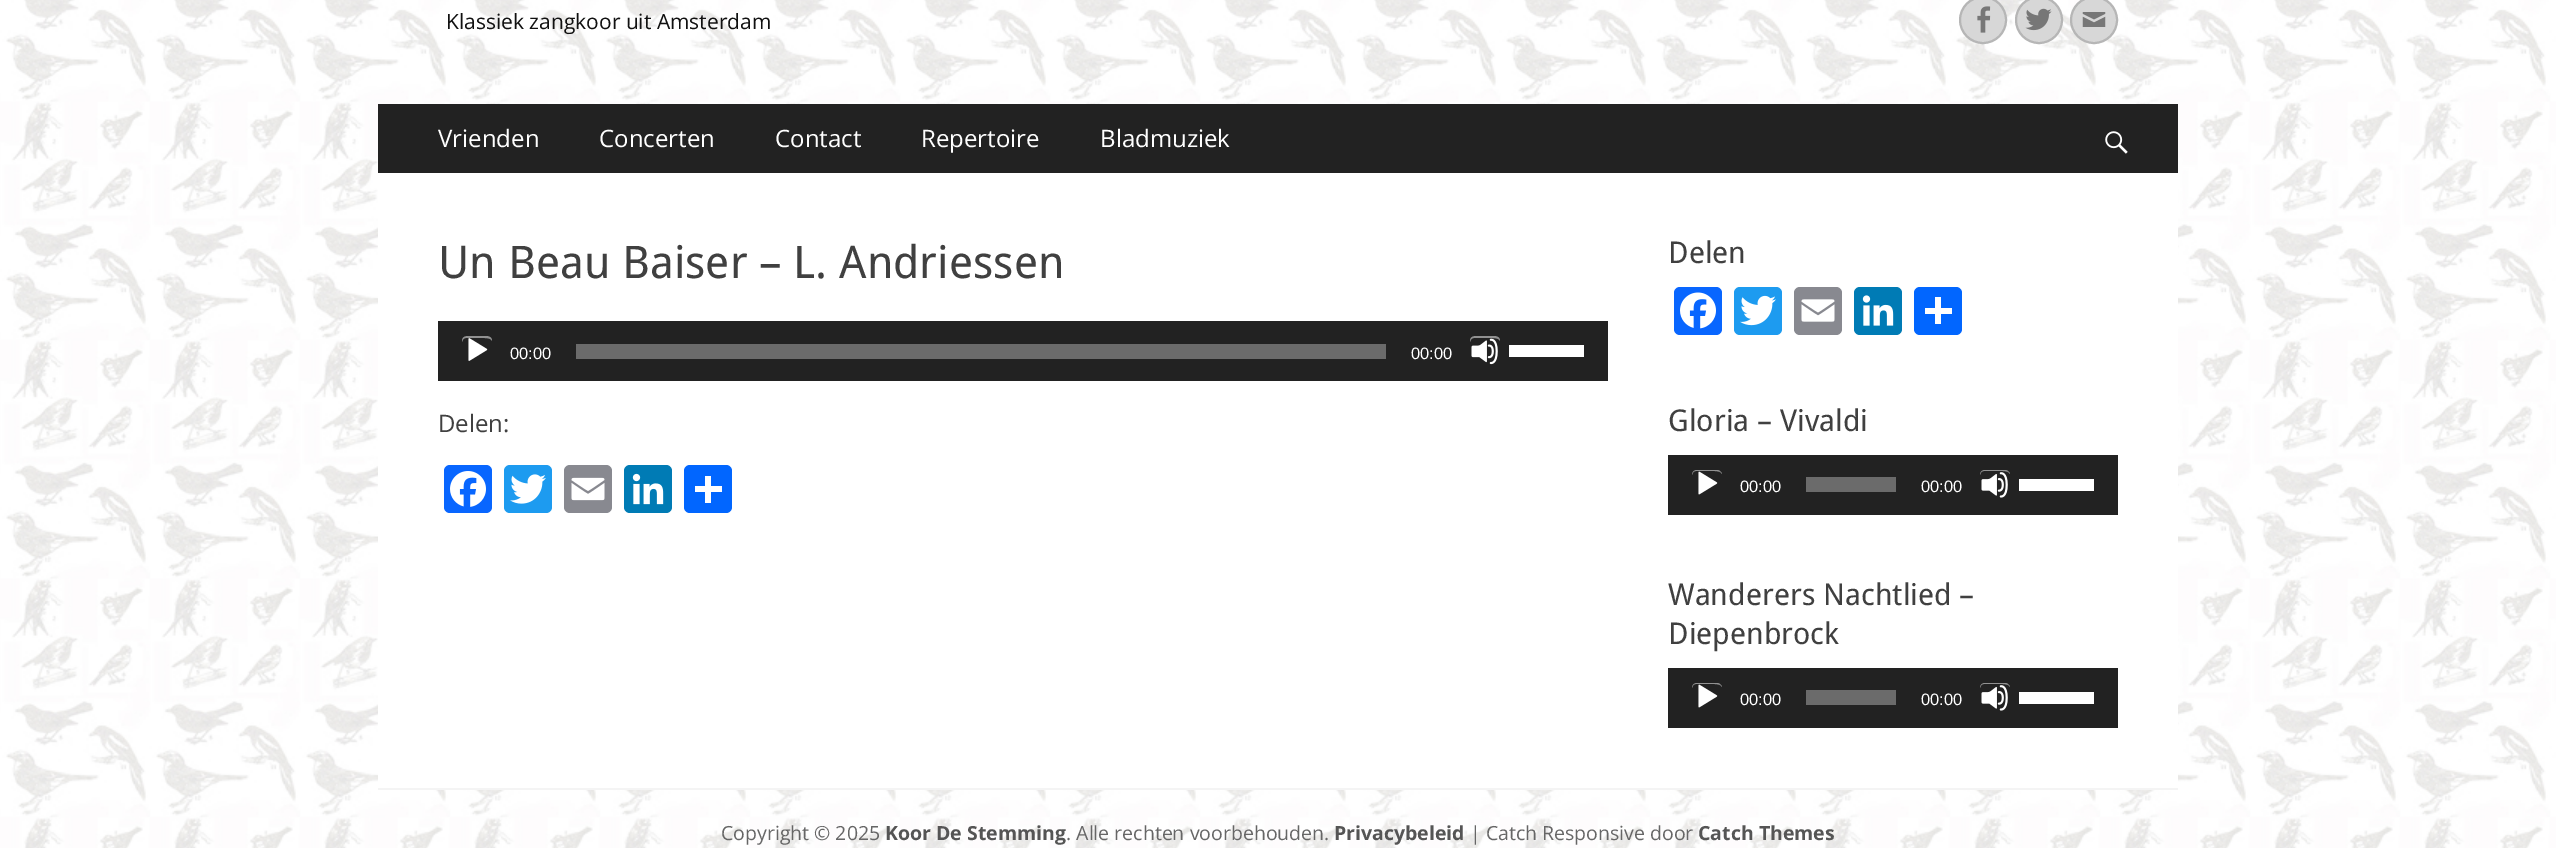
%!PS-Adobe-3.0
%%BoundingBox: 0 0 2556 848
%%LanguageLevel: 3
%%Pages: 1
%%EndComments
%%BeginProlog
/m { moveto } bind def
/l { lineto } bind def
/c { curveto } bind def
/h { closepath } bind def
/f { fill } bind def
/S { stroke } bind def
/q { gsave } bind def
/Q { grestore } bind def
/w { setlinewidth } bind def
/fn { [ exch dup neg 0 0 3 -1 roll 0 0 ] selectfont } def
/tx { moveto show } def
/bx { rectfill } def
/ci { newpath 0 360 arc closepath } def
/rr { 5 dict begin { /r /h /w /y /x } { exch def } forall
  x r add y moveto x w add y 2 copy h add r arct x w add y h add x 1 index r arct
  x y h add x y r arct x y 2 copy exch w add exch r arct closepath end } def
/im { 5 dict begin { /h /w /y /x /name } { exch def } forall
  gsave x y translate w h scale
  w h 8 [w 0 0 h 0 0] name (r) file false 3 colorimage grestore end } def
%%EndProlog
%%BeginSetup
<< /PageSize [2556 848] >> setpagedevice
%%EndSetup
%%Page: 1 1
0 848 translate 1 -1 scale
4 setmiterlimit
1 setgray
0 0 2556 848 bx
(image0.raw) 0 0 2556 848 im
/OpenSans-Regular 21 fn
0.067 setgray
(Klassiek zangkoor uit Amsterdam) 446 29 tx
0.843 setgray
1983 20 23 ci q f Q
0.714 setgray
2 w
S
(image1.raw) 1977 6 14 27 im
0.843 setgray
2039 20 23 ci q f Q
0.714 setgray
S
(image2.raw) 2025 8 27 23 im
0.843 setgray
2094 20 23 ci q f Q
0.714 setgray
S
(image3.raw) 2082 12 24 15 im
0.133 setgray
378 104 1800 69 bx
/OpenSans-Regular 24 fn
1 setgray
(Vrienden) 438 147 tx
(Concerten) 599 147 tx
(Contact) 775 147 tx
(Repertoire) 921 147 tx
(Bladmuziek) 1100 147 tx
(image4.raw) 2105 131 23 23 im
378 173 1800 615 bx
/DroidSans-Regular 45 fn
0.251 setgray
(Un Beau Baiser – L. Andriessen) 438 278 tx
0.133 setgray
438 321 1170 60 bx
(image5.raw) 468 338 20 23 im
0.569 setgray
466 338 m 484 338 l 489 338 491.5 339 492 341 c 492 336 487.5 336 483.5 336 c 470.5 336 l 465.5 336 462 336 462 342 c 462.5 340 463.5 338 466 338 c h f
/LiberationSans-Regular 16.5 fn
1 setgray
(00:00) 510 359 tx
0.42 setgray
576 344 810 15 bx
1 setgray
(00:00) 1411 359 tx
(image6.raw) 1471 338 27 27 im
0.569 setgray
1474 338 m 1492 338 l 1497 338 1499.5 339 1500 341 c 1500 336 1495.5 336 1491.5 336 c 1478.5 336 l 1473.5 336 1470 336 1470 342 c 1470.5 340 1471.5 338 1474 338 c h f
1 setgray
1509 345 75 12 bx
/OpenSans-Regular 24 fn
0.251 setgray
(Delen:) 438 432 tx
0.031 0.4 1 setrgbcolor
444 465 48 48 6 rr f
(image7.raw) 450 471 36 36 im
0.114 0.608 0.941 setrgbcolor
504 465 48 48 6 rr f
(image8.raw) 510 474 36 30 im
0.533 0.537 0.565 setrgbcolor
564 465 48 48 6 rr f
(image9.raw) 571 477 34 24 im
0 0.482 0.71 setrgbcolor
624 465 48 48 6 rr f
(image10.raw) 632 473 32 32 im
0.004 0.4 1 setrgbcolor
684 465 48 48 6 rr f
1 setgray
705 476 6 27 bx
695 486 27 6 bx
/DroidSans-Regular 30 fn
0.251 setgray
(Delen) 1668 263 tx
0.031 0.4 1 setrgbcolor
1674 287 48 48 6 rr f
(image11.raw) 1680 292 36 37 im
0.114 0.608 0.941 setrgbcolor
1734 287 48 48 6 rr f
(image12.raw) 1740 295 36 31 im
0.533 0.537 0.565 setrgbcolor
1794 287 48 48 6 rr f
(image13.raw) 1801 299 34 23 im
0 0.482 0.71 setrgbcolor
1854 287 48 48 6 rr f
(image14.raw) 1862 295 32 31 im
0.004 0.4 1 setrgbcolor
1914 287 48 48 6 rr f
1 setgray
1935 297 6 27 bx
1925 308 27 6 bx
0.251 setgray
(Gloria – Vivaldi) 1668 431 tx
0.133 setgray
1668 455 450 60 bx
(image15.raw) 1698 471 20 24 im
0.569 setgray
1696 471 m 1714 471 l 1719 471 1721 472 1722 474 c 1721.5 472 1719.5 470 1717 470 c 1697 470 l 1694 470 1692 472 1692 475 c 1692.5 473 1693.5 471 1696 471 c h f
/LiberationSans-Regular 16.5 fn
1 setgray
(00:00) 1740 492 tx
0.42 setgray
1806 477 90 15 bx
1 setgray
(00:00) 1921 492 tx
(image16.raw) 1981 472 27 26 im
0.569 setgray
1984 471 m 2002 471 l 2007 471 2009 472 2010 474 c 2009.5 472 2007.5 470 2005 470 c 1985 470 l 1982 470 1980 472 1980 475 c 1980.5 473 1981.5 471 1984 471 c h f
1 setgray
2019 479 75 12 bx
/DroidSans-Regular 30 fn
0.251 setgray
(Wanderers Nachtlied –) 1668 605 tx
(Diepenbrock) 1668 644 tx
0.133 setgray
1668 668 450 60 bx
(image15.raw) 1698 684 20 24 im
0.569 setgray
1696 684 m 1714 684 l 1719 684 1721 685 1722 687 c 1721.5 685 1719.5 683 1717 683 c 1697 683 l 1694 683 1692 685 1692 688 c 1692.5 686 1693.5 684 1696 684 c h f
/LiberationSans-Regular 16.5 fn
1 setgray
(00:00) 1740 705 tx
0.42 setgray
1806 690 90 15 bx
1 setgray
(00:00) 1921 705 tx
(image16.raw) 1981 685 27 26 im
0.569 setgray
1984 684 m 2002 684 l 2007 684 2009 685 2010 687 c 2009.5 685 2007.5 683 2005 683 c 1985 683 l 1982 683 1980 685 1980 688 c 1980.5 686 1981.5 684 1984 684 c h f
1 setgray
2019 692 75 12 bx
0.957 setgray
378 788 1800 2 bx
/OpenSans-Regular 19.5 fn
0.4 setgray
(Copyright © 2025) 721 840 tx
/OpenSans-Bold 19.5 fn
0.333 setgray
(Koor De Stemming) 885 840 tx
/OpenSans-Regular 19.5 fn
0.4 setgray
(. Alle rechten voorbehouden.) 1066 840 tx
/OpenSans-Bold 19.5 fn
0.333 setgray
(Privacybeleid) 1334 840 tx
/OpenSans-Regular 19.5 fn
0.4 setgray
(| Catch Responsive door) 1470 840 tx
/OpenSans-Bold 19.5 fn
0.333 setgray
(Catch Themes) 1698 840 tx
showpage
%%EOF
